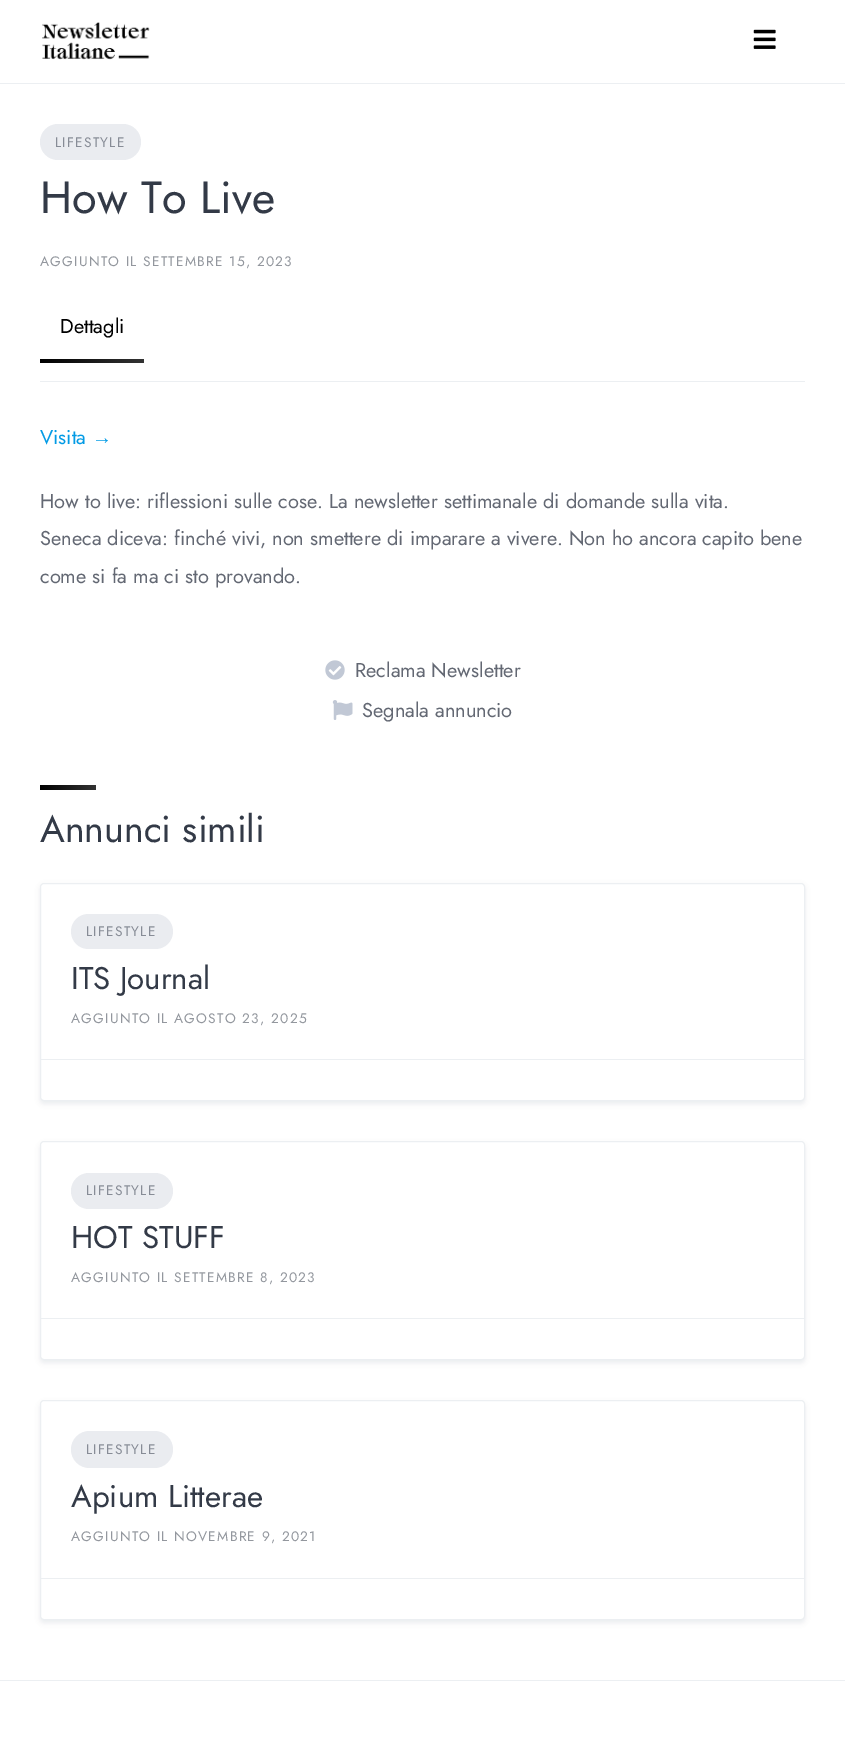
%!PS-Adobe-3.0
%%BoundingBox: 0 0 845 1746
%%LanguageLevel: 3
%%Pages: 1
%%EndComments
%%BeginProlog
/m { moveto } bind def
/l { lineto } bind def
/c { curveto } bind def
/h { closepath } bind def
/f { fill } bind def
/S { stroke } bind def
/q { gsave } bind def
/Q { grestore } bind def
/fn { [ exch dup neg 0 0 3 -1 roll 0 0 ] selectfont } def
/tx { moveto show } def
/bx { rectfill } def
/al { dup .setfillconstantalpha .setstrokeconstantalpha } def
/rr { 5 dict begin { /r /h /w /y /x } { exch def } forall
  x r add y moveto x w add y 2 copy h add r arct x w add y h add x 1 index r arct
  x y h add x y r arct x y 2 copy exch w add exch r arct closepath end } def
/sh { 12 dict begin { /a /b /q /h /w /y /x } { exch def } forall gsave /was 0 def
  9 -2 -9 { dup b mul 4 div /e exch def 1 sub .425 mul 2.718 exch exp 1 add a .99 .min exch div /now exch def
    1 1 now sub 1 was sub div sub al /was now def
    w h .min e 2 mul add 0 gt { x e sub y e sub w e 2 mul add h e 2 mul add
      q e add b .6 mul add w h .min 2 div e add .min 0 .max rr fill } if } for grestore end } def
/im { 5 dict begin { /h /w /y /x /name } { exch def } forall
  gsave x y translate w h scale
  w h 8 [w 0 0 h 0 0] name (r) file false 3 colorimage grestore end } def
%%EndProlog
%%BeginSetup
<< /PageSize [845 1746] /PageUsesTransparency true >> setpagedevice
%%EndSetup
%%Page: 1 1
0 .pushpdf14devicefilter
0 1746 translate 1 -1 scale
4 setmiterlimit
1 setgray
0 0 845 1746 bx
0.925 0.937 0.949 setrgbcolor
0 83 845 1 bx
(image0.raw) 42 22 108 38 im
(image1.raw) 753 29 23 20 im
0.918 0.925 0.941 setrgbcolor
40 124 101 36 18 rr f
/Jost-Regular 13.75 fn
0.529 0.549 0.588 setrgbcolor
55 147 m 1.25 0 (LIFESTYLE) ashow
/Jost-Regular 45 fn
0.2 0.227 0.278 setrgbcolor
(How To Live) 40 213 tx
/Jost-Regular 13.75 fn
0.576 0.592 0.62 setrgbcolor
40 266 m 1.25 0 (AGGIUNTO IL SETTEMBRE 15, 2023) ashow
0.925 0.937 0.949 setrgbcolor
40 381 765 1 bx
/Jost-Regular 20 fn
0 setgray
(Dettagli) 60 333 tx
q 40 359 m 144 359 l 144 363 l 40 363 l h clip newpath
<< /ShadingType 2 /ColorSpace /DeviceRGB /Coords [40 361 144 361] /Extend [true true] /Function << /FunctionType 2 /Domain [0 1] /C0 [0 0 0] /C1 [0.2 0.2 0.2] /N 1 >> >> shfill Q
0.012 0.608 0.898 setrgbcolor
(Visita) 40 444 tx
/LiberationSans-Regular 20 fn
(→) 92 444 tx
/Jost-Regular 20 fn
0.388 0.408 0.451 setrgbcolor
(How to live: riflessioni sulle cose. La newsletter settimanale di domande sulla vita.) 40 508 tx
(Seneca diceva: finché vivi, non smettere di imparare a vivere. Non ho ancora capito bene) 40 545 tx
(come si fa ma ci sto provando.) 40 583 tx
(image2.raw) 325 660 20 20 im
(Reclama Newsletter) 355 677 tx
(image3.raw) 332 700 21 20 im
(Segnala annuncio) 362 717 tx
q 40 785 m 96 785 l 96 790 l 40 790 l h clip newpath
<< /ShadingType 2 /ColorSpace /DeviceRGB /Coords [40 788 96 788] /Extend [true true] /Function << /FunctionType 2 /Domain [0 1] /C0 [0 0 0] /C1 [0.2 0.2 0.2] /N 1 >> >> shfill Q
/Jost-Regular 37.5 fn
0.2 0.227 0.278 setrgbcolor
(Annunci simili) 40 842 tx
q
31 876 m 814 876 l 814 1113 l 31 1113 l h 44 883 m 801 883 l 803 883 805 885 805 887 c 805 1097 l 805 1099 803 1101 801 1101 c 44 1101 l 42 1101 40 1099 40 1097 c 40 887 l 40 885 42 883 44 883 c h eoclip newpath
0.027 0.141 0.337 setrgbcolor
40 885 765 219 4 2.5 0.07 sh
Q
0.925 0.937 0.949 setrgbcolor
40.5 883.5 764 217 3.5 rr S
0.918 0.925 0.941 setrgbcolor
71 914 102 35 17.5 rr f
/Jost-Regular 13.75 fn
0.529 0.549 0.588 setrgbcolor
86 936 m 1.25 0 (LIFESTYLE) ashow
/Jost-Regular 31.25 fn
0.2 0.227 0.278 setrgbcolor
(ITS Journal) 71 989 tx
/Jost-Regular 13.75 fn
0.576 0.592 0.62 setrgbcolor
71 1023 m 1.25 0 (AGGIUNTO IL AGOSTO 23, 2025) ashow
0.925 0.937 0.949 setrgbcolor
41 1059 763 1 bx
0.027 0.141 0.337 setrgbcolor
40 1144 765 219 4 2.5 0.07 sh
1 setgray
40.5 1141.5 764 218 3.5 rr q f Q
0.925 0.937 0.949 setrgbcolor
S
0.918 0.925 0.941 setrgbcolor
71 1173 102 36 18 rr f
0.529 0.549 0.588 setrgbcolor
86 1195 m 1.25 0 (LIFESTYLE) ashow
/Jost-Regular 31.25 fn
0.2 0.227 0.278 setrgbcolor
(HOT STUFF) 71 1248 tx
/Jost-Regular 13.75 fn
0.576 0.592 0.62 setrgbcolor
71 1282 m 1.25 0 (AGGIUNTO IL SETTEMBRE 8, 2023) ashow
0.925 0.937 0.949 setrgbcolor
41 1318 763 1 bx
0.027 0.141 0.337 setrgbcolor
40 1403 765 220 4 2.5 0.07 sh
1 setgray
40.5 1400.5 764 219 3.5 rr q f Q
0.925 0.937 0.949 setrgbcolor
S
0.918 0.925 0.941 setrgbcolor
71 1431 102 37 18.5 rr f
0.529 0.549 0.588 setrgbcolor
86 1454 m 1.25 0 (LIFESTYLE) ashow
/Jost-Regular 31.25 fn
0.2 0.227 0.278 setrgbcolor
(Apium Litterae) 71 1507 tx
/Jost-Regular 13.75 fn
0.576 0.592 0.62 setrgbcolor
71 1541 m 1.25 0 (AGGIUNTO IL NOVEMBRE 9, 2021) ashow
0.925 0.937 0.949 setrgbcolor
41 1578 763 1 bx
0 1680 845 1 bx
.poppdf14devicefilter showpage
%%EOF
